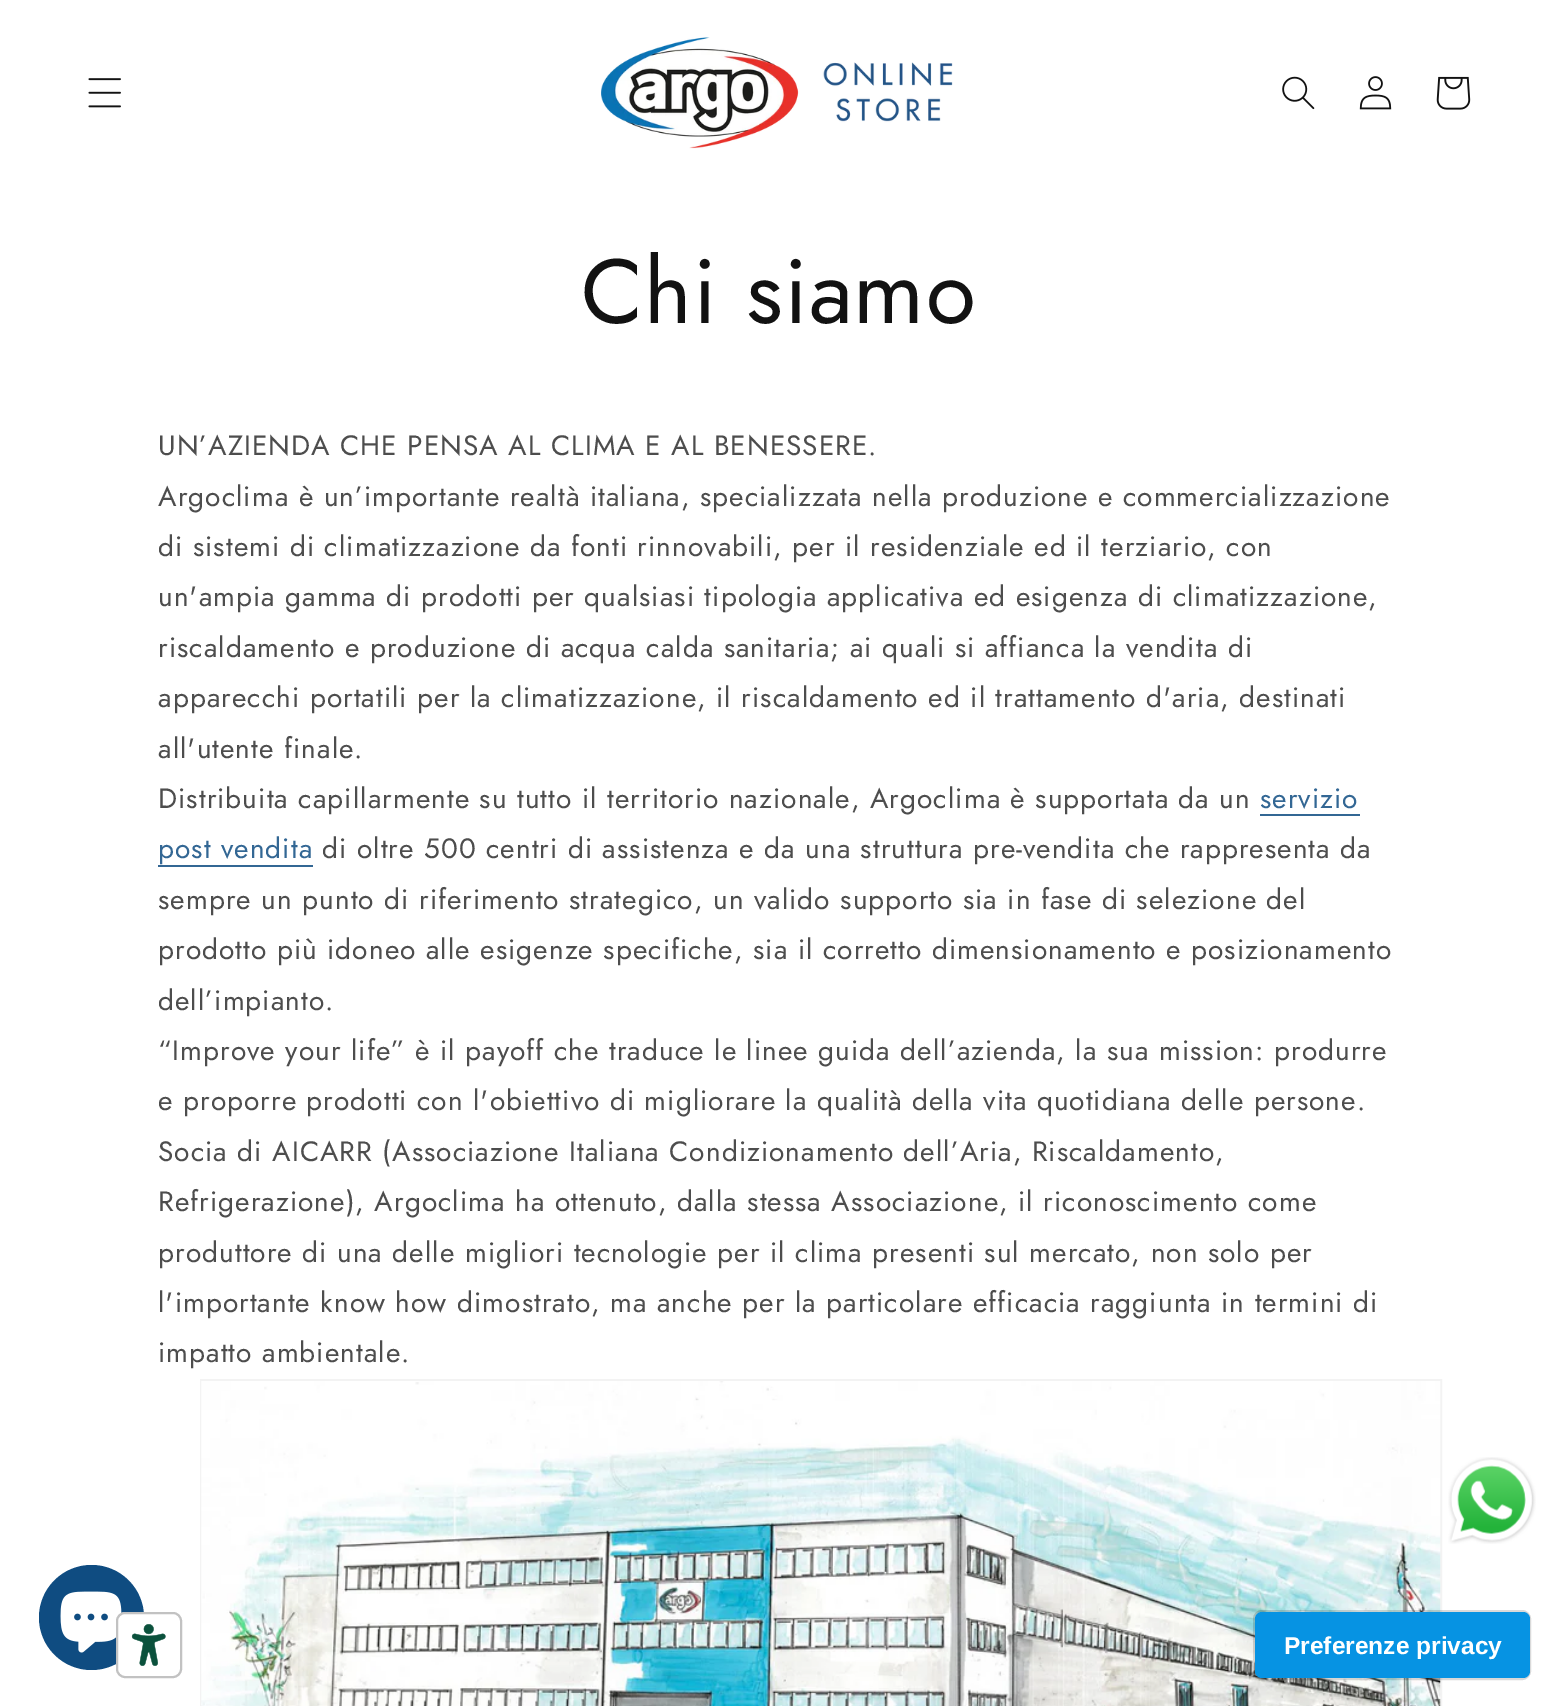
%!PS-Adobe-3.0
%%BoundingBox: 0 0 1557 1706
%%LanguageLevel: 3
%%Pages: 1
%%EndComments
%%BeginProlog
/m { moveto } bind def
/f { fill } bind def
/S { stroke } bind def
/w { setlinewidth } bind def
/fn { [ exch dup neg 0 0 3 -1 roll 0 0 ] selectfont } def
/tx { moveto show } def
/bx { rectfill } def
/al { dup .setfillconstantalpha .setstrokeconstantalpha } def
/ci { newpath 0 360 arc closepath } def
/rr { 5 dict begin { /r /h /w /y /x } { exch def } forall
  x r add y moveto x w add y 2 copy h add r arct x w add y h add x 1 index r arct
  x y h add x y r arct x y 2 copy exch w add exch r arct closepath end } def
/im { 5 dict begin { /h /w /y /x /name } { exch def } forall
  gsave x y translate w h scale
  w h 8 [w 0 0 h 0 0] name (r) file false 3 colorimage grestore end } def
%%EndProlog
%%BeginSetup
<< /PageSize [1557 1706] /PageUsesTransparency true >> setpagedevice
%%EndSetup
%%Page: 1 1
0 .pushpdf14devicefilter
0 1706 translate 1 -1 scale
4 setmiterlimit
1 setgray
0 0 1557 1706 bx
(image0.raw) 88 78 33 30 im
(image1.raw) 601 37 352 112 im
(image2.raw) 1282 76 33 34 im
(image3.raw) 1359 76 33 34 im
(image4.raw) 1436 76 35 34 im
/Jost-Regular 91 fn
0.071 setgray
581 323 m 1.05 0 (Chi siamo) ashow
/Jost-Regular 28 fn
0.302 setgray
158 455 m 1.05 0 (UN’AZIENDA CHE PENSA AL CLIMA E AL BENESSERE.) ashow
158 506 m 1.05 0 (Argoclima è un’importante realtà italiana, specializzata nella produzione e commercializzazione) ashow
158 556 m 1.05 0 (di sistemi di climatizzazione da fonti rinnovabili, per il residenziale ed il terziario, con) ashow
158 606 m 1.05 0 (un'ampia gamma di prodotti per qualsiasi tipologia applicativa ed esigenza di climatizzazione,) ashow
158 657 m 1.05 0 (riscaldamento e produzione di acqua calda sanitaria; ai quali si affianca la vendita di) ashow
158 707 m 1.05 0 (apparecchi portatili per la climatizzazione, il riscaldamento ed il trattamento d'aria, destinati) ashow
158 758 m 1.05 0 (all'utente finale.) ashow
158 808 m 1.05 0 (Distribuita capillarmente su tutto il territorio nazionale, Argoclima è supportata da un) ashow
0.2 0.404 0.58 setrgbcolor
1260 808 m 1.05 0 (servizio) ashow
1260 814 100 2 bx
158 858 m 1.05 0 (post vendita) ashow
158 865 155 2 bx
0.302 setgray
322 858 m 1.05 0 (di oltre 500 centri di assistenza e da una struttura pre-vendita che rappresenta da) ashow
158 909 m 1.05 0 (sempre un punto di riferimento strategico, un valido supporto sia in fase di selezione del) ashow
158 959 m 1.05 0 (prodotto più idoneo alle esigenze specifiche, sia il corretto dimensionamento e posizionamento) ashow
158 1010 m 1.05 0 (dell’impianto.) ashow
158 1060 m 1.05 0 (“Improve your life” è il payoff che traduce le linee guida dell’azienda, la sua mission: produrre) ashow
158 1110 m 1.05 0 (e proporre prodotti con l'obiettivo di migliorare la qualità della vita quotidiana delle persone.) ashow
158 1161 m 1.05 0 (Socia di AICARR \(Associazione Italiana Condizionamento dell’Aria, Riscaldamento,) ashow
158 1211 m 1.05 0 (Refrigerazione\), Argoclima ha ottenuto, dalla stessa Associazione, il riconoscimento come) ashow
158 1262 m 1.05 0 (produttore di una delle migliori tecnologie per il clima presenti sul mercato, non solo per) ashow
158 1312 m 1.05 0 (l'importante know how dimostrato, ma anche per la particolare efficacia raggiunta in termini di) ashow
158 1362 m 1.05 0 (impatto ambientale.) ashow
0.953 setgray
2 w
201 1380 1240 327 rectstroke
(image5.raw) 201 1381 1240 325 im
(image6.raw) 1448 1457 88 87 im
0.059 0.298 0.506 setrgbcolor
91.5 1617.5 52.5 ci f
(image7.raw) 60 1591 62 62 im
1 setgray
116 1612 66 66 9 rr f
(image8.raw) 131 1624 35 42 im
0.24 al
0 setgray
117 1613 64 64 8 rr S
0.15 al
1254 1611 276 68 8 rr S
1 al
0.024 0.576 0.89 setrgbcolor
1255 1612 275 66 7 rr f
/LiberationSans-Bold 24.5 fn
1 setgray
(Preferenze privacy) 1284 1654 tx
.poppdf14devicefilter showpage
%%EOF
